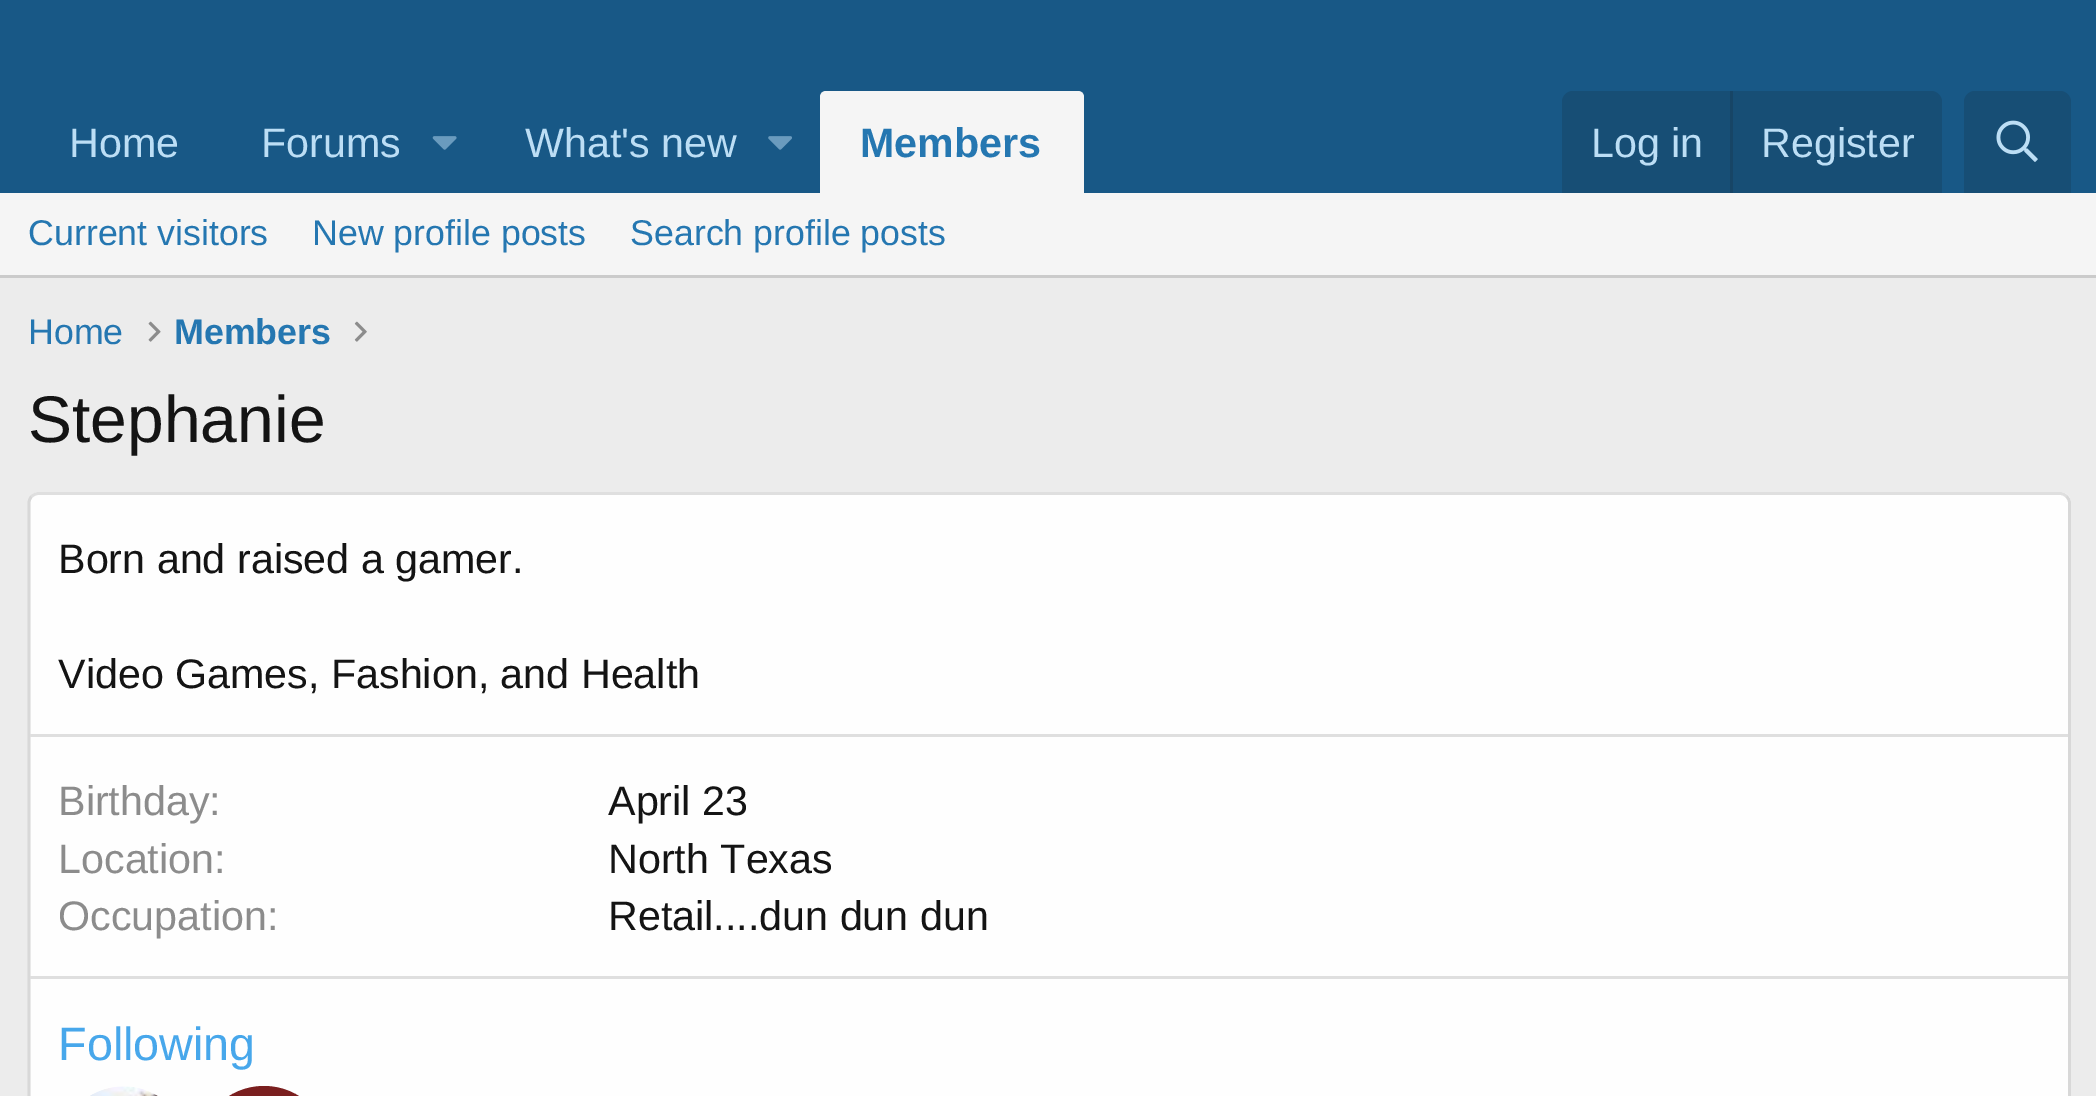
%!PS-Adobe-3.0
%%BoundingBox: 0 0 2096 1096
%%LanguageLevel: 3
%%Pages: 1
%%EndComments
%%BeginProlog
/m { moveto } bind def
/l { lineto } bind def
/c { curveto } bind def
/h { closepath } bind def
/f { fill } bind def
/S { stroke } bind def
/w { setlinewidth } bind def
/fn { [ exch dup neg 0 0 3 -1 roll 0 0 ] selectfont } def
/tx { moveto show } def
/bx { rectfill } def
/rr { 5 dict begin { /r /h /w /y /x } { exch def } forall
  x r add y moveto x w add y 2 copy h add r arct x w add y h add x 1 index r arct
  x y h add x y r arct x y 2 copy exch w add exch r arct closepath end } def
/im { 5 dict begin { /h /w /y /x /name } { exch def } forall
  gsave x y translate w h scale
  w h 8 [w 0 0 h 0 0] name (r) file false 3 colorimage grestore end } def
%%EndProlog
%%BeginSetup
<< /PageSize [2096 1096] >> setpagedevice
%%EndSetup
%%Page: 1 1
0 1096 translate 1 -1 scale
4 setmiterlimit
0.925 setgray
0 0 2096 1096 bx
0.094 0.345 0.525 setrgbcolor
0 0 2096 193 bx
/LiberationSans-Regular 41.25 fn
0.737 0.871 0.961 setrgbcolor
(Home) 69 157 tx
(Forums) 261 157 tx
(image0.raw) 432 136 25 14 im
(What's new) 525 157 tx
(image1.raw) 768 136 24 14 im
0.961 setgray
826 91 m 1078 91 l 1081.5 91 1084 93.5 1084 97 c 1084 193 l 820 193 l 820 97 l 820 93.5 822.5 91 826 91 c h f
/LiberationSans-Bold 41.25 fn
0.145 0.467 0.694 setrgbcolor
(Members) 860 157 tx
0.09 0.306 0.459 setrgbcolor
1573 91 m 1931 91 l 1937 91 1942 96 1942 102 c 1942 193 l 1562 193 l 1562 102 l 1562 96 1567 91 1573 91 c h f
/LiberationSans-Regular 41.25 fn
0.737 0.871 0.961 setrgbcolor
(Log in) 1591 157 tx
0.09 0.271 0.4 setrgbcolor
1730 91 3 102 bx
0.737 0.871 0.961 setrgbcolor
(Register) 1761 157 tx
0.09 0.306 0.459 setrgbcolor
1975 91 m 2060 91 l 2066 91 2071 96 2071 102 c 2071 193 l 1964 193 l 1964 102 l 1964 96 1969 91 1975 91 c h f
(image2.raw) 1996 120 42 42 im
0.961 setgray
0 193 2096 82 bx
0.796 setgray
0 275 2096 3 bx
/LiberationSans-Regular 35.75 fn
0.145 0.467 0.694 setrgbcolor
(Current visitors) 28 245 tx
(New profile posts) 312 245 tx
(Search profile posts) 630 245 tx
(Home) 28 344 tx
(image3.raw) 148 321 13 21 im
/LiberationSans-Bold 35.75 fn
(Members) 174 344 tx
(image4.raw) 354 321 13 21 im
/LiberationSans-Regular 66 fn
0.078 setgray
(Stephanie) 28 442 tx
0.996 setgray
28 492 2043 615 11 rr f
0.875 setgray
2.8 w
31.5 496.5 m 33.5 494.5 36 493.5 38.5 493.5 c 2060 493.5 l 2062.5 493.5 2065 494.5 2066.5 496.5 c S
0.847 setgray
2066.5 496.5 m 2068.5 498 2069.5 500.5 2069.5 503 c 2069.5 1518 l 2069.5 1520.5 2068.5 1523 2066.5 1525 c S
31.5 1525 m 30 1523 29 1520.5 29 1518 c 29 503 l 29 500.5 30 498 31.5 496.5 c S
/LiberationSans-Regular 41.25 fn
0.078 setgray
(Born and raised a gamer.) 58 573 tx
(Video Games, Fashion, and Health) 58 688 tx
0.875 setgray
30 734 2038 3 bx
0.549 setgray
(Birthday:) 58 815 tx
0.078 setgray
(April 23) 608 815 tx
0.549 setgray
(Location:) 58 873 tx
0.078 setgray
(North Texas) 608 873 tx
0.549 setgray
(Occupation:) 58 930 tx
0.078 setgray
(Retail....dun dun dun) 608 930 tx
0.875 setgray
30 976 2038 3 bx
/LiberationSans-Regular 46.75 fn
0.278 0.655 0.922 setrgbcolor
(Following) 58 1060 tx
(image5.raw) 90 1086 68 10 im
0.478 0.122 0.122 setrgbcolor
198 1086 132 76 66 rr f
showpage
%%EOF
